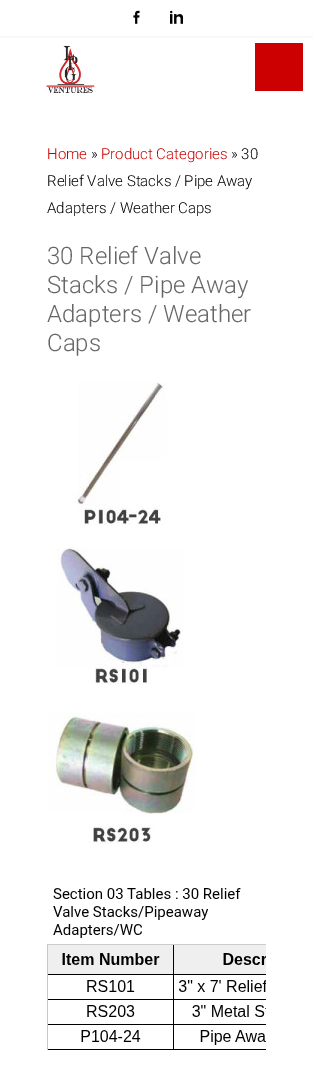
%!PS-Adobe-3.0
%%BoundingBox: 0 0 313 1076
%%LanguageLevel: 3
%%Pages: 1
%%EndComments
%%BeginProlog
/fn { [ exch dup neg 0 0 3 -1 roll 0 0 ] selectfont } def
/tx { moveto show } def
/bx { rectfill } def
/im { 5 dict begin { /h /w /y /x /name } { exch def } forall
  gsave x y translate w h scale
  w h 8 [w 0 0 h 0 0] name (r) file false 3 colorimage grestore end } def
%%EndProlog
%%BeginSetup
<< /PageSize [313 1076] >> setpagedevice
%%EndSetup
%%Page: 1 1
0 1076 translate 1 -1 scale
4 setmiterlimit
1 setgray
0 0 313 1076 bx
(image0.raw) 133 10 7 14 im
(image1.raw) 170 10 13 14 im
0.973 setgray
0 36 313 2 bx
(image2.raw) 46 45 49 48 im
0.8 0 0 setrgbcolor
255 43 48 48 bx
/Roboto-Light 15 fn
(Home) 47 159 tx
0 setgray
(») 91 159 tx
0.8 0 0 setrgbcolor
(Product Categories) 101 159 tx
0 setgray
(» 30) 231 159 tx
(Relief Valve Stacks / Pipe Away) 47 186 tx
(Adapters / Weather Caps) 47 213 tx
/Roboto-Light 24 fn
0.4 setgray
(30 Relief Valve) 47 264 tx
(Stacks / Pipe Away) 47 293 tx
(Adapters / Weather) 47 322 tx
(Caps) 47 351 tx
(image3.raw) 72 382 95 144 im
(image4.raw) 57 548 126 137 im
(image5.raw) 47 713 150 131 im
(image6.raw) 47 888 219 162 im
showpage
%%EOF
